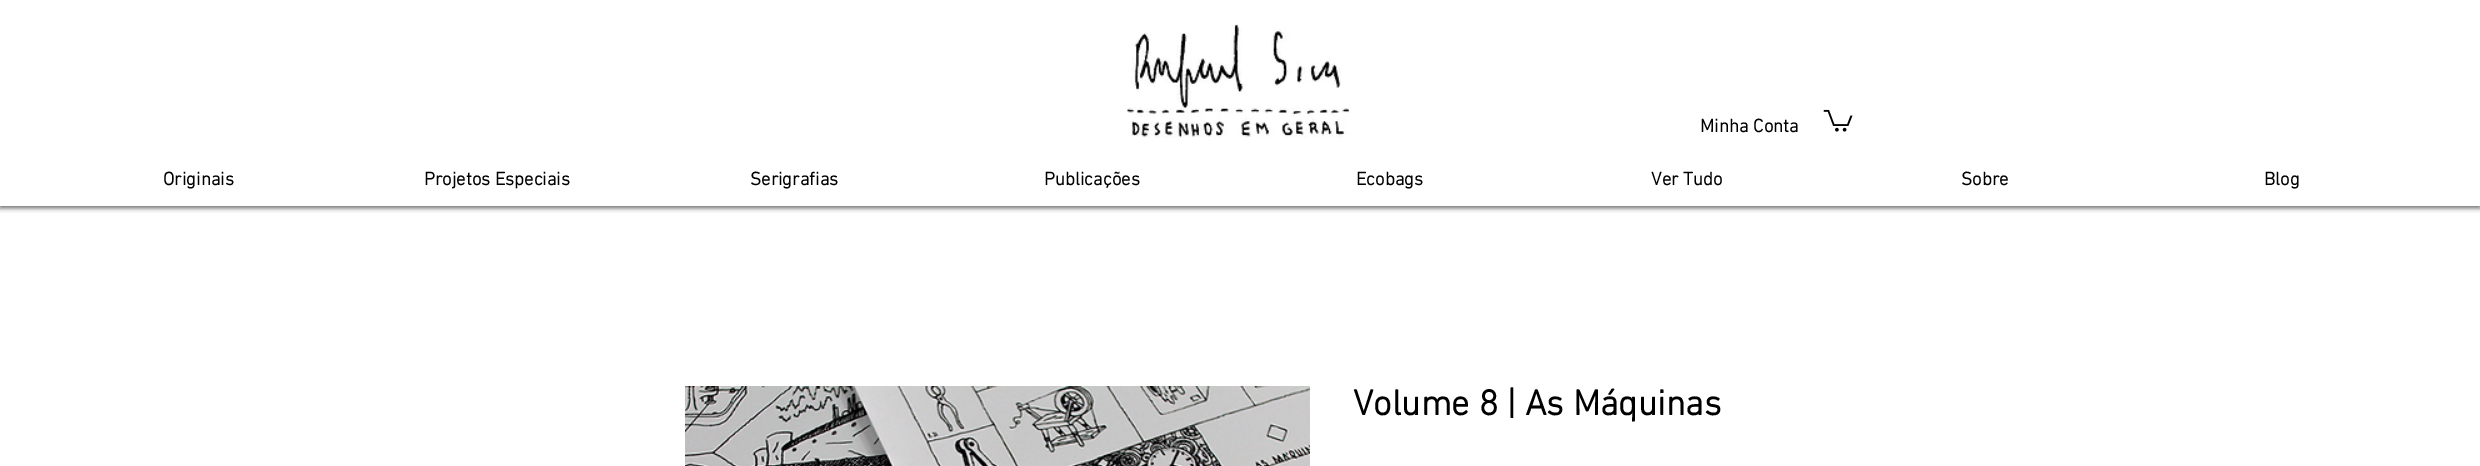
%!PS-Adobe-3.0
%%BoundingBox: 0 0 2480 466
%%LanguageLevel: 3
%%Pages: 1
%%EndComments
%%BeginProlog
/q { gsave } bind def
/Q { grestore } bind def
/fn { [ exch dup neg 0 0 3 -1 roll 0 0 ] selectfont } def
/tx { moveto show } def
/bx { rectfill } def
/al { dup .setfillconstantalpha .setstrokeconstantalpha } def
/rr { 5 dict begin { /r /h /w /y /x } { exch def } forall
  x r add y moveto x w add y 2 copy h add r arct x w add y h add x 1 index r arct
  x y h add x y r arct x y 2 copy exch w add exch r arct closepath end } def
/sh { 12 dict begin { /a /b /q /h /w /y /x } { exch def } forall gsave /was 0 def
  9 -2 -9 { dup b mul 4 div /e exch def 1 sub .425 mul 2.718 exch exp 1 add a .99 .min exch div /now exch def
    1 1 now sub 1 was sub div sub al /was now def
    w h .min e 2 mul add 0 gt { x e sub y e sub w e 2 mul add h e 2 mul add
      q e add b .6 mul add w h .min 2 div e add .min 0 .max rr fill } if } for grestore end } def
/im { 5 dict begin { /h /w /y /x /name } { exch def } forall
  gsave x y translate w h scale
  w h 8 [w 0 0 h 0 0] name (r) file false 3 colorimage grestore end } def
%%EndProlog
%%BeginSetup
<< /PageSize [2480 466] /PageUsesTransparency true >> setpagedevice
%%EndSetup
%%Page: 1 1
0 .pushpdf14devicefilter
0 466 translate 1 -1 scale
4 setmiterlimit
1 setgray
0 0 2480 466 bx
q
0 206 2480 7 rectclip
0 setgray
0 1 2480 207 0 2.5 0.6 sh
Q
(image0.raw) 1127 24 223 114 im
/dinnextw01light-Bold 18.75 fn
0 setgray
(Minha Conta) 1700 132 tx
(image1.raw) 1823 109 30 23 im
(Originais) 163 185 tx
(Projetos Especiais) 424 185 tx
(Serigrafias) 750 185 tx
(Publicações) 1044 185 tx
(Ecobags) 1356 185 tx
(Ver Tudo) 1651 185 tx
(Sobre) 1961 185 tx
(Blog) 2264 185 tx
(image2.raw) 685 386 625 80 im
/dinnextw01light-Bold 36.25 fn
(Volume 8 | As Máquinas) 1353 415 tx
.poppdf14devicefilter showpage
%%EOF
